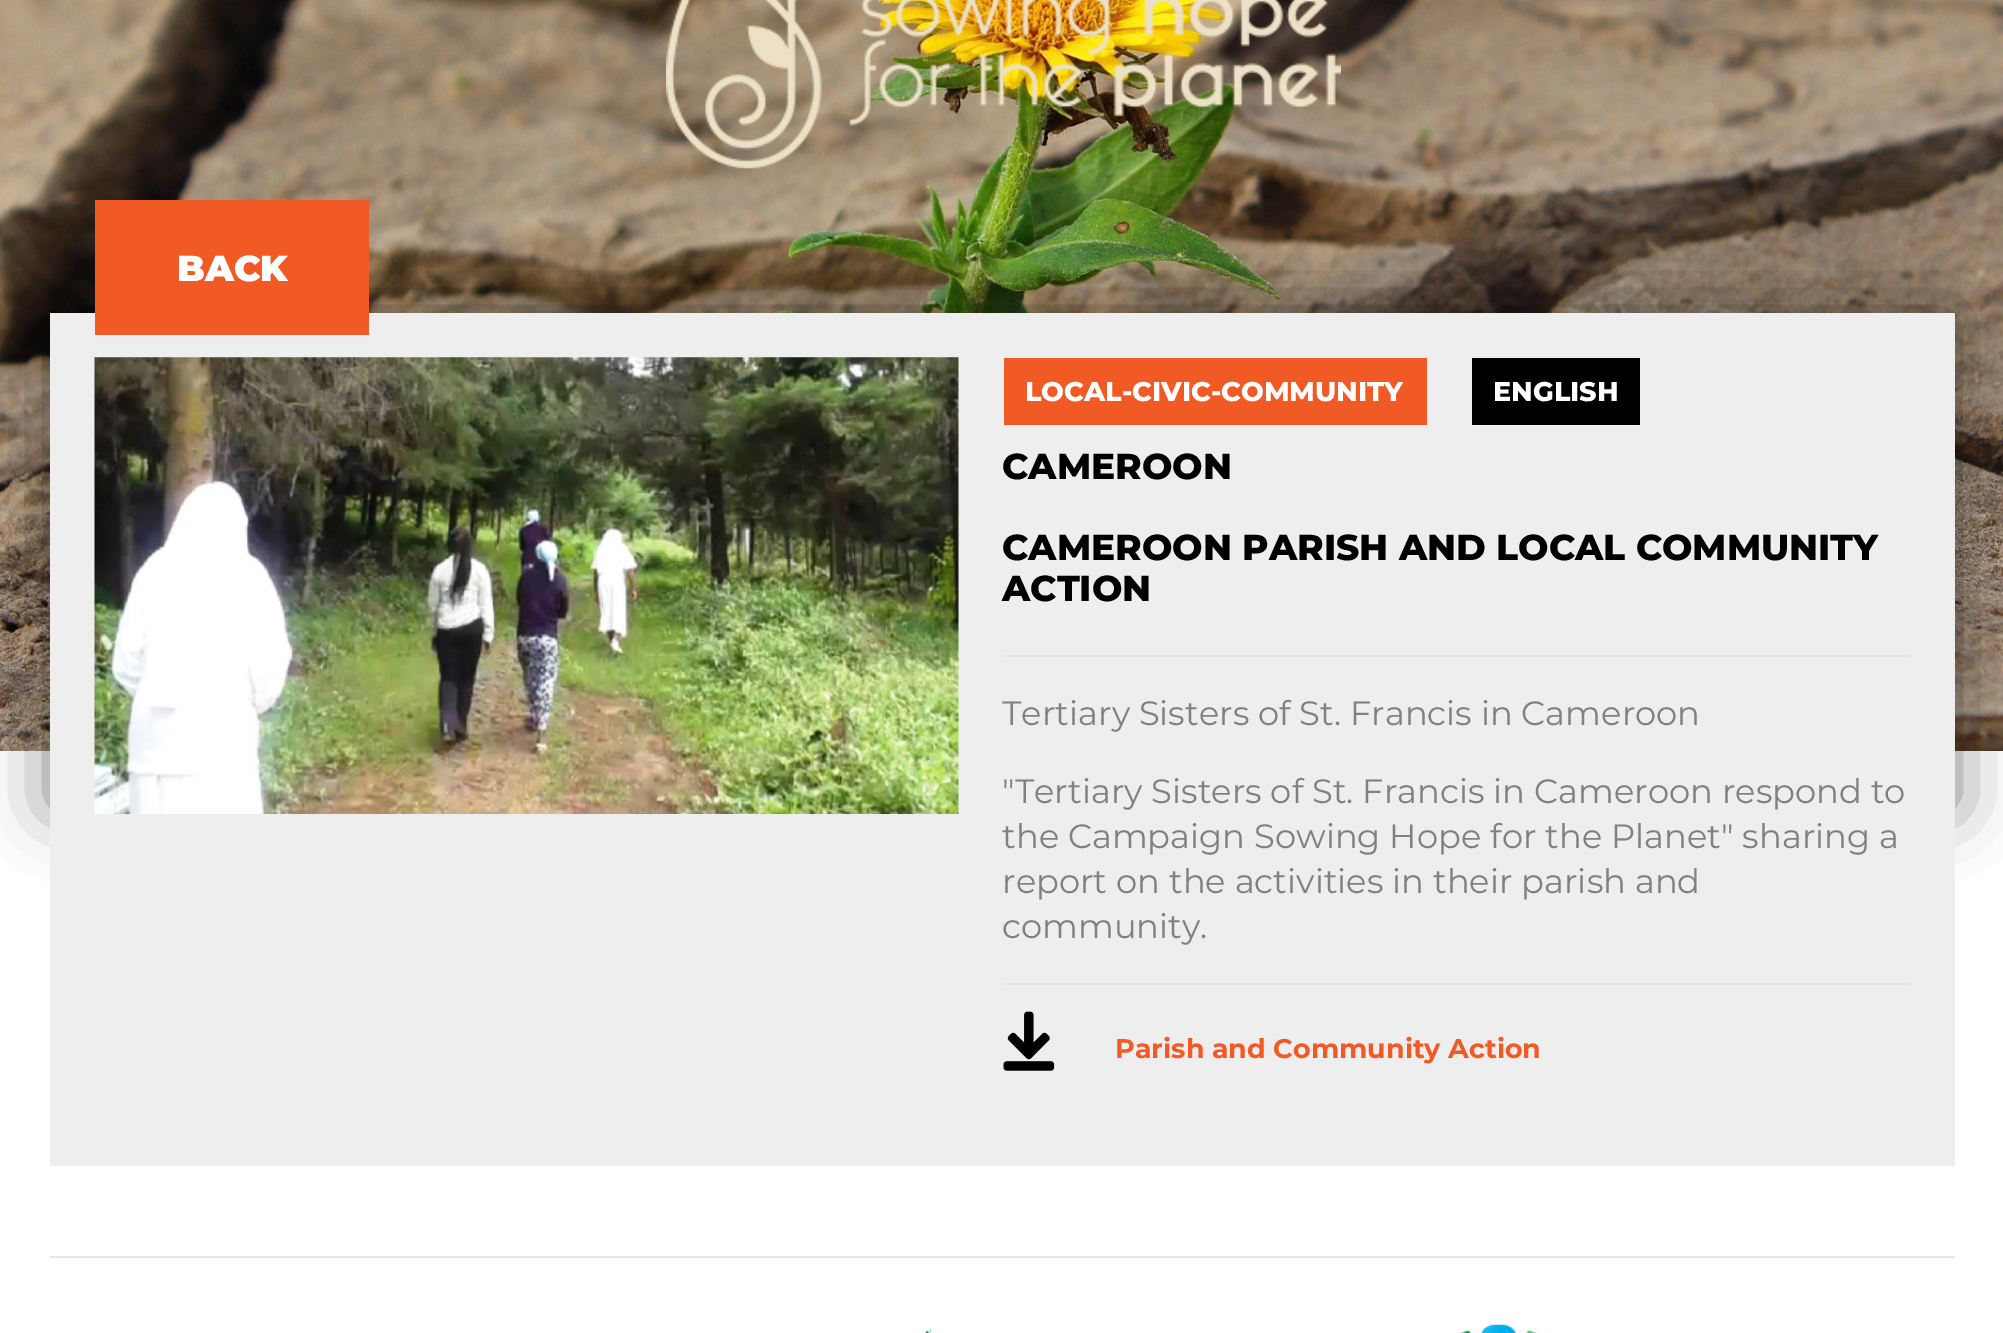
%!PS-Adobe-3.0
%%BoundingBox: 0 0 2003 1333
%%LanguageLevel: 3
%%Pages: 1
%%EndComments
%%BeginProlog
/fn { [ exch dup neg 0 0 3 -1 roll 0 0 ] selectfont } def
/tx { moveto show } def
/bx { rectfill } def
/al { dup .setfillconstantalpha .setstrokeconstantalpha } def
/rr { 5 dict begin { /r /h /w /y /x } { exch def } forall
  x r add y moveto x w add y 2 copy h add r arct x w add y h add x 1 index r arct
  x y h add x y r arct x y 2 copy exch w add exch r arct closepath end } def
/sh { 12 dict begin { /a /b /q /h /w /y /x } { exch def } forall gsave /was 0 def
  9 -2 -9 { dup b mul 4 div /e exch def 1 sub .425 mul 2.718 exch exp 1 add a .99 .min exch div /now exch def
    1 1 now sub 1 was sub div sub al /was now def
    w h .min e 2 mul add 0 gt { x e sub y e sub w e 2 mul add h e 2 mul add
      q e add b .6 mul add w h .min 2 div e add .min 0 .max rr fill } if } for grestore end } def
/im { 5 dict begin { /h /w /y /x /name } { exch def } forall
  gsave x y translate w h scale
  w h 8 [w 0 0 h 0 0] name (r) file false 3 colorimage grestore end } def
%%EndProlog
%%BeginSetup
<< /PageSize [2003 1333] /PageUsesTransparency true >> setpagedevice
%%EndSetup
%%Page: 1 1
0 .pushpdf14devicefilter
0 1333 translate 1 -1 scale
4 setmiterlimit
1 setgray
0 0 2003 1333 bx
(image0.raw) 0 0 2003 751 im
(image1.raw) 666 0 675 169 im
0 setgray
50 313 1905 495 0 34 0.5 sh
0.933 setgray
50 313 1905 853 bx
0.945 0.353 0.141 setrgbcolor
95 200 274 135 bx
/Montserrat-Black 36 fn
1 setgray
(BACK) 177 281 tx
(image2.raw) 94 357 865 457 im
0.945 0.353 0.141 setrgbcolor
1004 358 423 67 bx
/Montserrat-ExtraBold 27 fn
1 setgray
(LOCAL-CIVIC-COMMUNITY) 1025 401 tx
0 setgray
1472 358 168 67 bx
1 setgray
(ENGLISH) 1493 401 tx
0.898 setgray
1004 655 906 2 bx
/Montserrat-ExtraBold 36 fn
0 setgray
(CAMEROON) 1002 479 tx
(CAMEROON PARISH AND LOCAL COMMUNITY) 1002 560 tx
(ACTION) 1002 601 tx
0.898 setgray
1004 983 906 2 bx
/Montserrat-Regular 33.75 fn
0.502 setgray
(Tertiary Sisters of St. Francis in Cameroon) 1002 725 tx
("Tertiary Sisters of St. Francis in Cameroon respond to) 1002 803 tx
(the Campaign Sowing Hope for the Planet" sharing a) 1002 848 tx
(report on the activities in their parish and) 1002 893 tx
(community.) 1002 938 tx
(image3.raw) 1003 1011 52 60 im
/Montserrat-Bold 27 fn
0.945 0.353 0.141 setrgbcolor
(Parish and Community Action) 1115 1058 tx
0.898 setgray
50 1256 1905 2 bx
(image4.raw) 925 1328 7 5 im
(image5.raw) 1460 1324 77 9 im
.poppdf14devicefilter showpage
%%EOF
